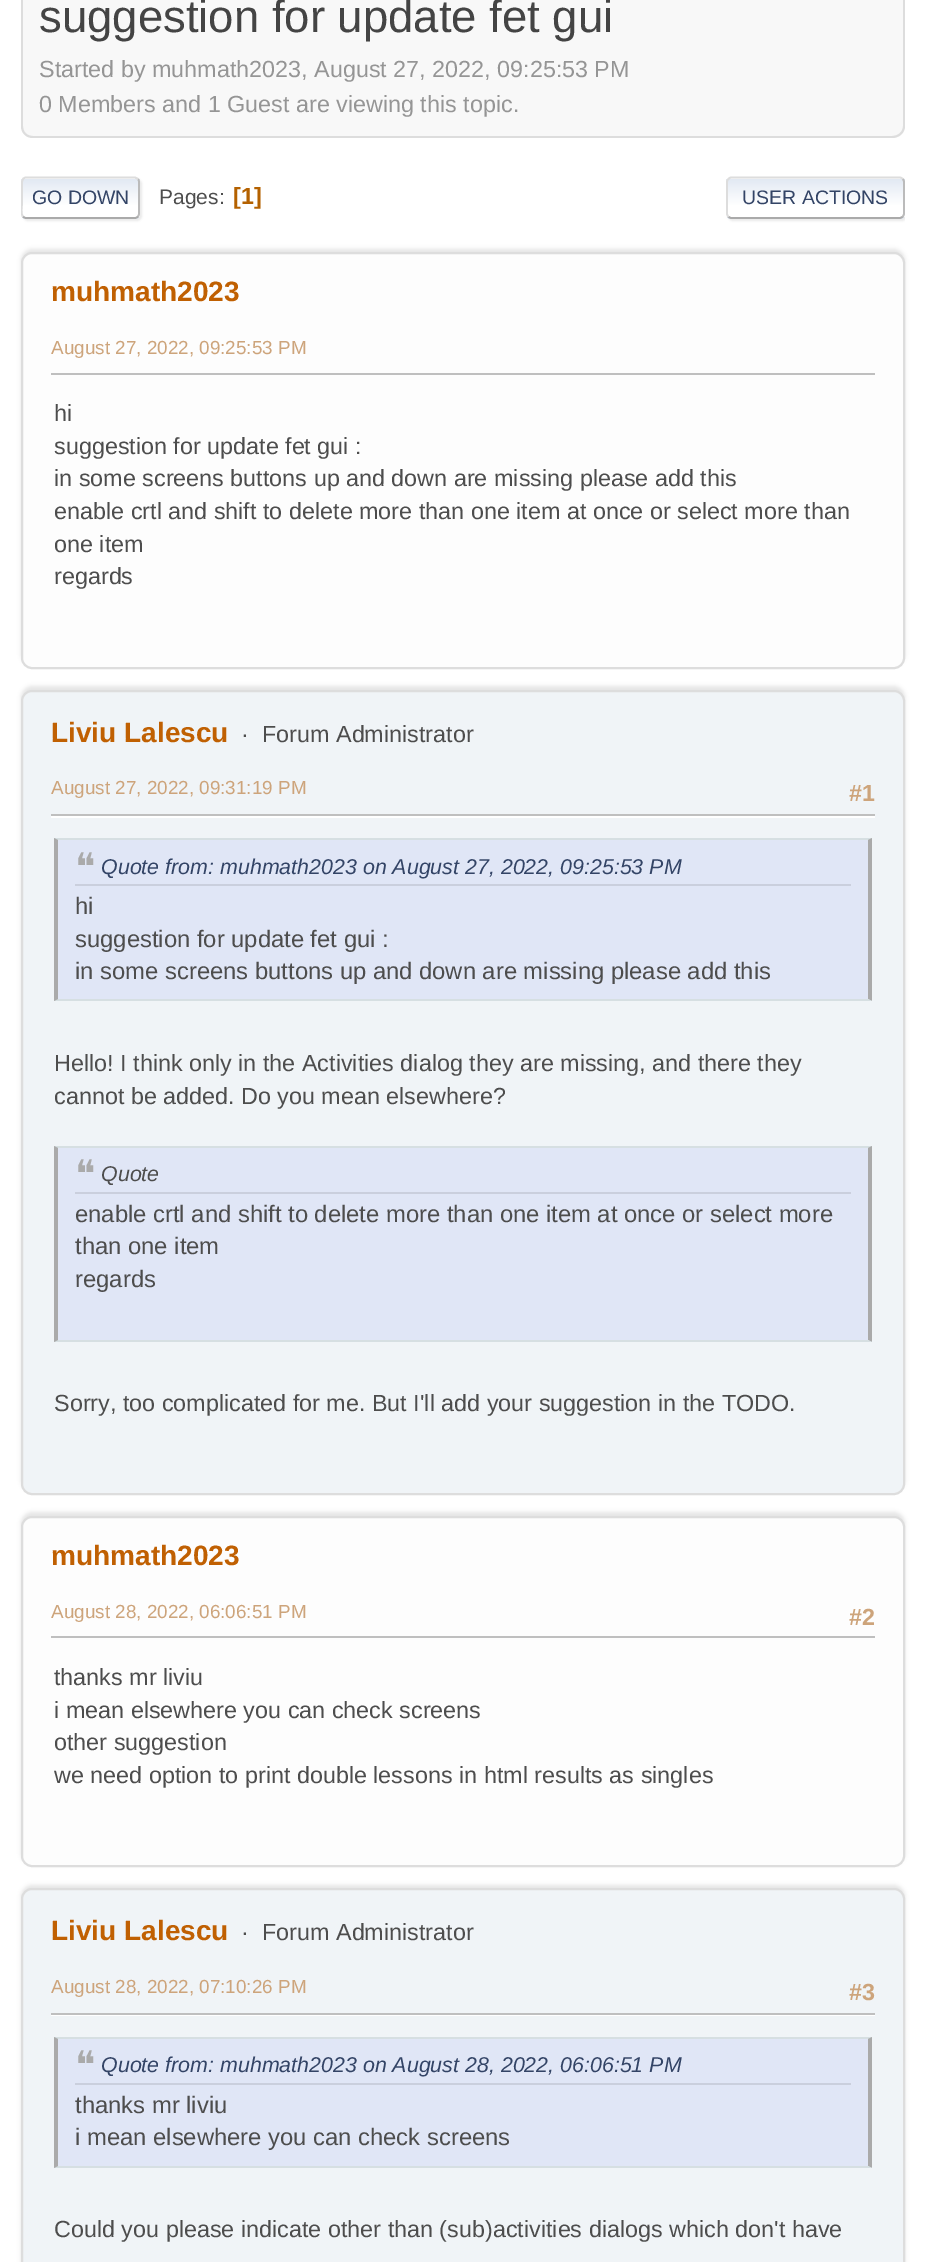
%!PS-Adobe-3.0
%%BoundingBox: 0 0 925 2262
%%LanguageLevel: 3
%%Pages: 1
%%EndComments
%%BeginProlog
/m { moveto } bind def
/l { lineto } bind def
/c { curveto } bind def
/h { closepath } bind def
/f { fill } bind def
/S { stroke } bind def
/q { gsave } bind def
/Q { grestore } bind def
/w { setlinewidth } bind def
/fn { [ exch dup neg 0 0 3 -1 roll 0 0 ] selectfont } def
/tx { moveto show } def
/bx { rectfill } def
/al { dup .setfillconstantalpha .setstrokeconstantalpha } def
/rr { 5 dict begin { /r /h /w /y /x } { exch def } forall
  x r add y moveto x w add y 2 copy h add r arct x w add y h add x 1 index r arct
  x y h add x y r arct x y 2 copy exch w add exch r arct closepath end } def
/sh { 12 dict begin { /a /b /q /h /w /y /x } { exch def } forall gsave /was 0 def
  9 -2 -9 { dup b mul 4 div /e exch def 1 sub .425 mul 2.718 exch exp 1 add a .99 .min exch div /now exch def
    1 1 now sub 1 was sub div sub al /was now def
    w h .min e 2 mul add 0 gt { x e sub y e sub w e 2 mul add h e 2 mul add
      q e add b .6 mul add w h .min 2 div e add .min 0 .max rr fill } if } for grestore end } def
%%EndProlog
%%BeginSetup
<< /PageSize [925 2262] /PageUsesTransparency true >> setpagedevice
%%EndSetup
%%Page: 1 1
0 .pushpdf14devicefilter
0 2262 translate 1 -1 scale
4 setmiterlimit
1 setgray
0 0 925 2262 bx
0.973 setgray
21 -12 m 905 -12 l 905 126 l 905 132.5 899.5 138 893 138 c 33 138 l 26.5 138 21 132.5 21 126 c h f
0.867 setgray
21 -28 m 905 -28 l 905 126 l 905 133 899 138 892 138 c 33 138 l 26 138 21 133 21 126 c h 23 -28 m 903 -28 l 903 126 l 903 132 898 136 892 136 c 33 136 l 27 136 23 132 23 126 c h eofill
/LiberationSans-Regular 45.5 fn
0.267 setgray
(suggestion for update fet gui) 39 32 tx
/LiberationSans-Regular 23.35 fn
0.584 setgray
(Started by muhmath2023, August 27, 2022, 09:25:53 PM) 39 77 tx
(0 Members and 1 Guest are viewing this topic.) 39 112 tx
0.867 setgray
23 179 119 42 5 1 0.57 sh
1 setgray
21 177 119 42 5 rr f
q
21 177 119 42 5 rr clip newpath
q 21 179 m 140 179 l 140 217 l 21 217 l h clip newpath
<< /ShadingType 2 /ColorSpace /DeviceRGB /Coords [81 179 81 217] /Extend [true true] /Function << /FunctionType 3 /Domain [0 1] /Functions [<< /FunctionType 2 /Domain [0 1] /C0 [0.886 0.914 0.953] /C1 [1 1 1] /N 1 >> << /FunctionType 2 /Domain [0 1] /C0 [1 1 1] /C1 [1 1 1] /N 1 >>] /Bounds [0.7] /Encode [0 1 0 1] >> >> shfill Q
q 21 217 m 140 217 l 140 219 l 21 219 l h clip newpath
<< /ShadingType 2 /ColorSpace /DeviceRGB /Coords [81 217 81 256] /Extend [true true] /Function << /FunctionType 3 /Domain [0 1] /Functions [<< /FunctionType 2 /Domain [0 1] /C0 [0.886 0.914 0.953] /C1 [1 1 1] /N 1 >> << /FunctionType 2 /Domain [0 1] /C0 [1 1 1] /C1 [1 1 1] /N 1 >>] /Bounds [0.7] /Encode [0 1 0 1] >> >> shfill Q
Q
0.733 setgray
1.8 w
138 179 m 138.5 179.5 139 181 139 182 c 139 213.5 l 139 214.5 138.5 216 138 216.5 c S
0.667 setgray
138 216.5 m 137 217.5 136 218 135 218 c 26 218 l 25 218 24 217.5 23 216.5 c S
q
21 165 884 66 rectclip
0.867 setgray
23 216.5 m 20.5 214 22 206 22 203 c 22 187 l 22 184 21 177.5 26 177.5 c 135 177.5 l 138 179 l S
Q
/LiberationSans-Regular 19.5 fn
0.2 0.267 0.4 setrgbcolor
(GO DOWN) 32 204 tx
/LiberationSans-Regular 21 fn
0.302 setgray
(Pages:) 159 204 tx
/LiberationSans-Bold 23.35 fn
0.706 0.38 0 setrgbcolor
([1]) 233 204 tx
q
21 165 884 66 rectclip
0.867 setgray
728 179 179 42 5 1 0.57 sh
Q
1 setgray
726 177 179 42 5 rr f
q
726 177 179 42 5 rr clip newpath
q 726 179 m 905 179 l 905 217 l 726 217 l h clip newpath
<< /ShadingType 2 /ColorSpace /DeviceRGB /Coords [816 179 816 217] /Extend [true true] /Function << /FunctionType 3 /Domain [0 1] /Functions [<< /FunctionType 2 /Domain [0 1] /C0 [0.886 0.914 0.953] /C1 [1 1 1] /N 1 >> << /FunctionType 2 /Domain [0 1] /C0 [1 1 1] /C1 [1 1 1] /N 1 >>] /Bounds [0.7] /Encode [0 1 0 1] >> >> shfill Q
q 726 217 m 905 217 l 905 219 l 726 219 l h clip newpath
<< /ShadingType 2 /ColorSpace /DeviceRGB /Coords [816 217 816 256] /Extend [true true] /Function << /FunctionType 3 /Domain [0 1] /Functions [<< /FunctionType 2 /Domain [0 1] /C0 [0.886 0.914 0.953] /C1 [1 1 1] /N 1 >> << /FunctionType 2 /Domain [0 1] /C0 [1 1 1] /C1 [1 1 1] /N 1 >>] /Bounds [0.7] /Encode [0 1 0 1] >> >> shfill Q
Q
0.733 setgray
902.5 179 m 903.5 179.5 904 181 904 182 c 904 213.5 l 904 214.5 903.5 216 902.5 216.5 c S
0.667 setgray
902.5 216.5 m 902 217.5 900.5 218 899.5 218 c 731.5 218 l 730.5 218 729 217.5 728.5 216.5 c S
0.867 setgray
728.5 216.5 m 727.5 216 727 214.5 727 213.5 c 727 182 l 727 181 727.5 179.5 728.5 179 c 729 178 730.5 177.5 731.5 177.5 c 899.5 177.5 l 900.5 177.5 902 178 902.5 179 c S
/LiberationSans-Regular 19.5 fn
0.2 0.267 0.4 setrgbcolor
(USER ACTIONS) 742 204 tx
0 setgray
21 249 884 416 11 2 0.1 sh
0.992 setgray
22 253 882 415 10 rr q f Q
0.867 setgray
2 w
S
/LiberationSans-Bold 28 fn
0.753 0.376 0.008 setrgbcolor
(muhmath2023) 51 301 tx
/LiberationSans-Regular 18.9 fn
0.804 0.643 0.482 setrgbcolor
(August 27, 2022, 09:25:53 PM) 51 354 tx
0.749 setgray
51 373 824 2 bx
/LiberationSans-Regular 23.35 fn
0.302 setgray
(hi) 54 421 tx
(suggestion for update fet gui :) 54 454 tx
(in some screens buttons up and down are missing please add this) 54 486 tx
(enable crtl and shift to delete more than one item at once or select more than) 54 519 tx
(one item) 54 552 tx
(regards) 54 584 tx
0 setgray
21 686 884 805 11 2 0.1 sh
0.941 0.957 0.969 setrgbcolor
22 691 882 803 10 rr q f Q
0.867 setgray
S
/LiberationSans-Bold 28 fn
0.753 0.376 0.008 setrgbcolor
(Liviu Lalescu) 51 742 tx
/LiberationSans-Regular 23.35 fn
0.302 setgray
(·) 241 742 tx
(Forum Administrator) 262 742 tx
/LiberationSans-Regular 18.9 fn
0.804 0.643 0.482 setrgbcolor
(August 27, 2022, 09:31:19 PM) 51 794 tx
/LiberationSans-Bold 23.35 fn
(#1) 849 801 tx
1 setgray
51 816 824 2 bx
0.749 setgray
51 814 824 2 bx
0.878 0.902 0.965 setrgbcolor
58 840 810 159 bx
0.839 0.875 0.886 setrgbcolor
54 838 m 872 838 l 868 840 l 58 840 l h f
0.667 setgray
872 838 m 872 1001 l 868 999 l 868 840 l h f
0.839 0.875 0.886 setrgbcolor
872 1001 m 54 1001 l 58 999 l 868 999 l h f
0.667 setgray
54 1001 m 54 838 l 58 840 l 58 999 l h f
0.792 0.812 0.867 setrgbcolor
75 884 776 2 bx
/DejaVuSans-Regular 38 fn
0.667 setgray
(❝) 75 880 tx
/LiberationSans-Italic 21.4 fn
0.2 0.267 0.4 setrgbcolor
(Quote from: muhmath2023 on August 27, 2022, 09:25:53 PM) 101 874 tx
/LiberationSans-Regular 23.8 fn
0.302 setgray
(hi) 75 914 tx
(suggestion for update fet gui :) 75 947 tx
(in some screens buttons up and down are missing please add this) 75 979 tx
/LiberationSans-Regular 23.35 fn
(Hello! I think only in the Activities dialog they are missing, and there they) 54 1071 tx
(cannot be added. Do you mean elsewhere?) 54 1104 tx
0.878 0.902 0.965 setrgbcolor
58 1148 810 192 bx
0.839 0.875 0.886 setrgbcolor
54 1146 m 872 1146 l 868 1148 l 58 1148 l h f
0.667 setgray
872 1146 m 872 1342 l 868 1340 l 868 1148 l h f
0.839 0.875 0.886 setrgbcolor
872 1342 m 54 1342 l 58 1340 l 868 1340 l h f
0.667 setgray
54 1342 m 54 1146 l 58 1148 l 58 1340 l h f
0.792 0.812 0.867 setrgbcolor
75 1192 776 2 bx
/DejaVuSans-Regular 38 fn
0.667 setgray
(❝) 75 1187 tx
/LiberationSans-Italic 21.4 fn
0.302 setgray
(Quote) 101 1181 tx
/LiberationSans-Regular 23.8 fn
(enable crtl and shift to delete more than one item at once or select more) 75 1222 tx
(than one item) 75 1254 tx
(regards) 75 1287 tx
/LiberationSans-Regular 23.35 fn
(Sorry, too complicated for me. But I'll add your suggestion in the TODO.) 54 1411 tx
0 setgray
21 1512 884 352 11 2 0.1 sh
0.992 setgray
22 1517 882 349 10 rr q f Q
0.867 setgray
S
/LiberationSans-Bold 28 fn
0.753 0.376 0.008 setrgbcolor
(muhmath2023) 51 1565 tx
/LiberationSans-Regular 18.9 fn
0.804 0.643 0.482 setrgbcolor
(August 28, 2022, 06:06:51 PM) 51 1618 tx
/LiberationSans-Bold 23.35 fn
(#2) 849 1625 tx
0.749 setgray
51 1636 824 2 bx
/LiberationSans-Regular 23.35 fn
0.302 setgray
(thanks mr liviu) 54 1685 tx
(i mean elsewhere you can check screens) 54 1718 tx
(other suggestion) 54 1750 tx
(we need option to print double lessons in html results as singles) 54 1783 tx
0 setgray
21 1885 884 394 11 2 0.1 sh
0.941 0.957 0.969 setrgbcolor
22 1889 882 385 10 rr q f Q
0.867 setgray
S
/LiberationSans-Bold 28 fn
0.753 0.376 0.008 setrgbcolor
(Liviu Lalescu) 51 1940 tx
/LiberationSans-Regular 23.35 fn
0.302 setgray
(·) 241 1940 tx
(Forum Administrator) 262 1940 tx
/LiberationSans-Regular 18.9 fn
0.804 0.643 0.482 setrgbcolor
(August 28, 2022, 07:10:26 PM) 51 1993 tx
/LiberationSans-Bold 23.35 fn
(#3) 849 2000 tx
1 setgray
51 2015 824 1 bx
0.749 setgray
51 2013 824 2 bx
0.878 0.902 0.965 setrgbcolor
58 2039 810 127 bx
0.839 0.875 0.886 setrgbcolor
54 2037 m 872 2037 l 868 2039 l 58 2039 l h f
0.667 setgray
872 2037 m 872 2168 l 868 2166 l 868 2039 l h f
0.839 0.875 0.886 setrgbcolor
872 2168 m 54 2168 l 58 2166 l 868 2166 l h f
0.667 setgray
54 2168 m 54 2037 l 58 2039 l 58 2166 l h f
0.792 0.812 0.867 setrgbcolor
75 2083 776 2 bx
/DejaVuSans-Regular 38 fn
0.667 setgray
(❝) 75 2078 tx
/LiberationSans-Italic 21.4 fn
0.2 0.267 0.4 setrgbcolor
(Quote from: muhmath2023 on August 28, 2022, 06:06:51 PM) 101 2072 tx
/LiberationSans-Regular 23.8 fn
0.302 setgray
(thanks mr liviu) 75 2113 tx
(i mean elsewhere you can check screens) 75 2145 tx
/LiberationSans-Regular 23.35 fn
(Could you please indicate other than \(sub\)activities dialogs which don't have) 54 2237 tx
.poppdf14devicefilter showpage
%%EOF
